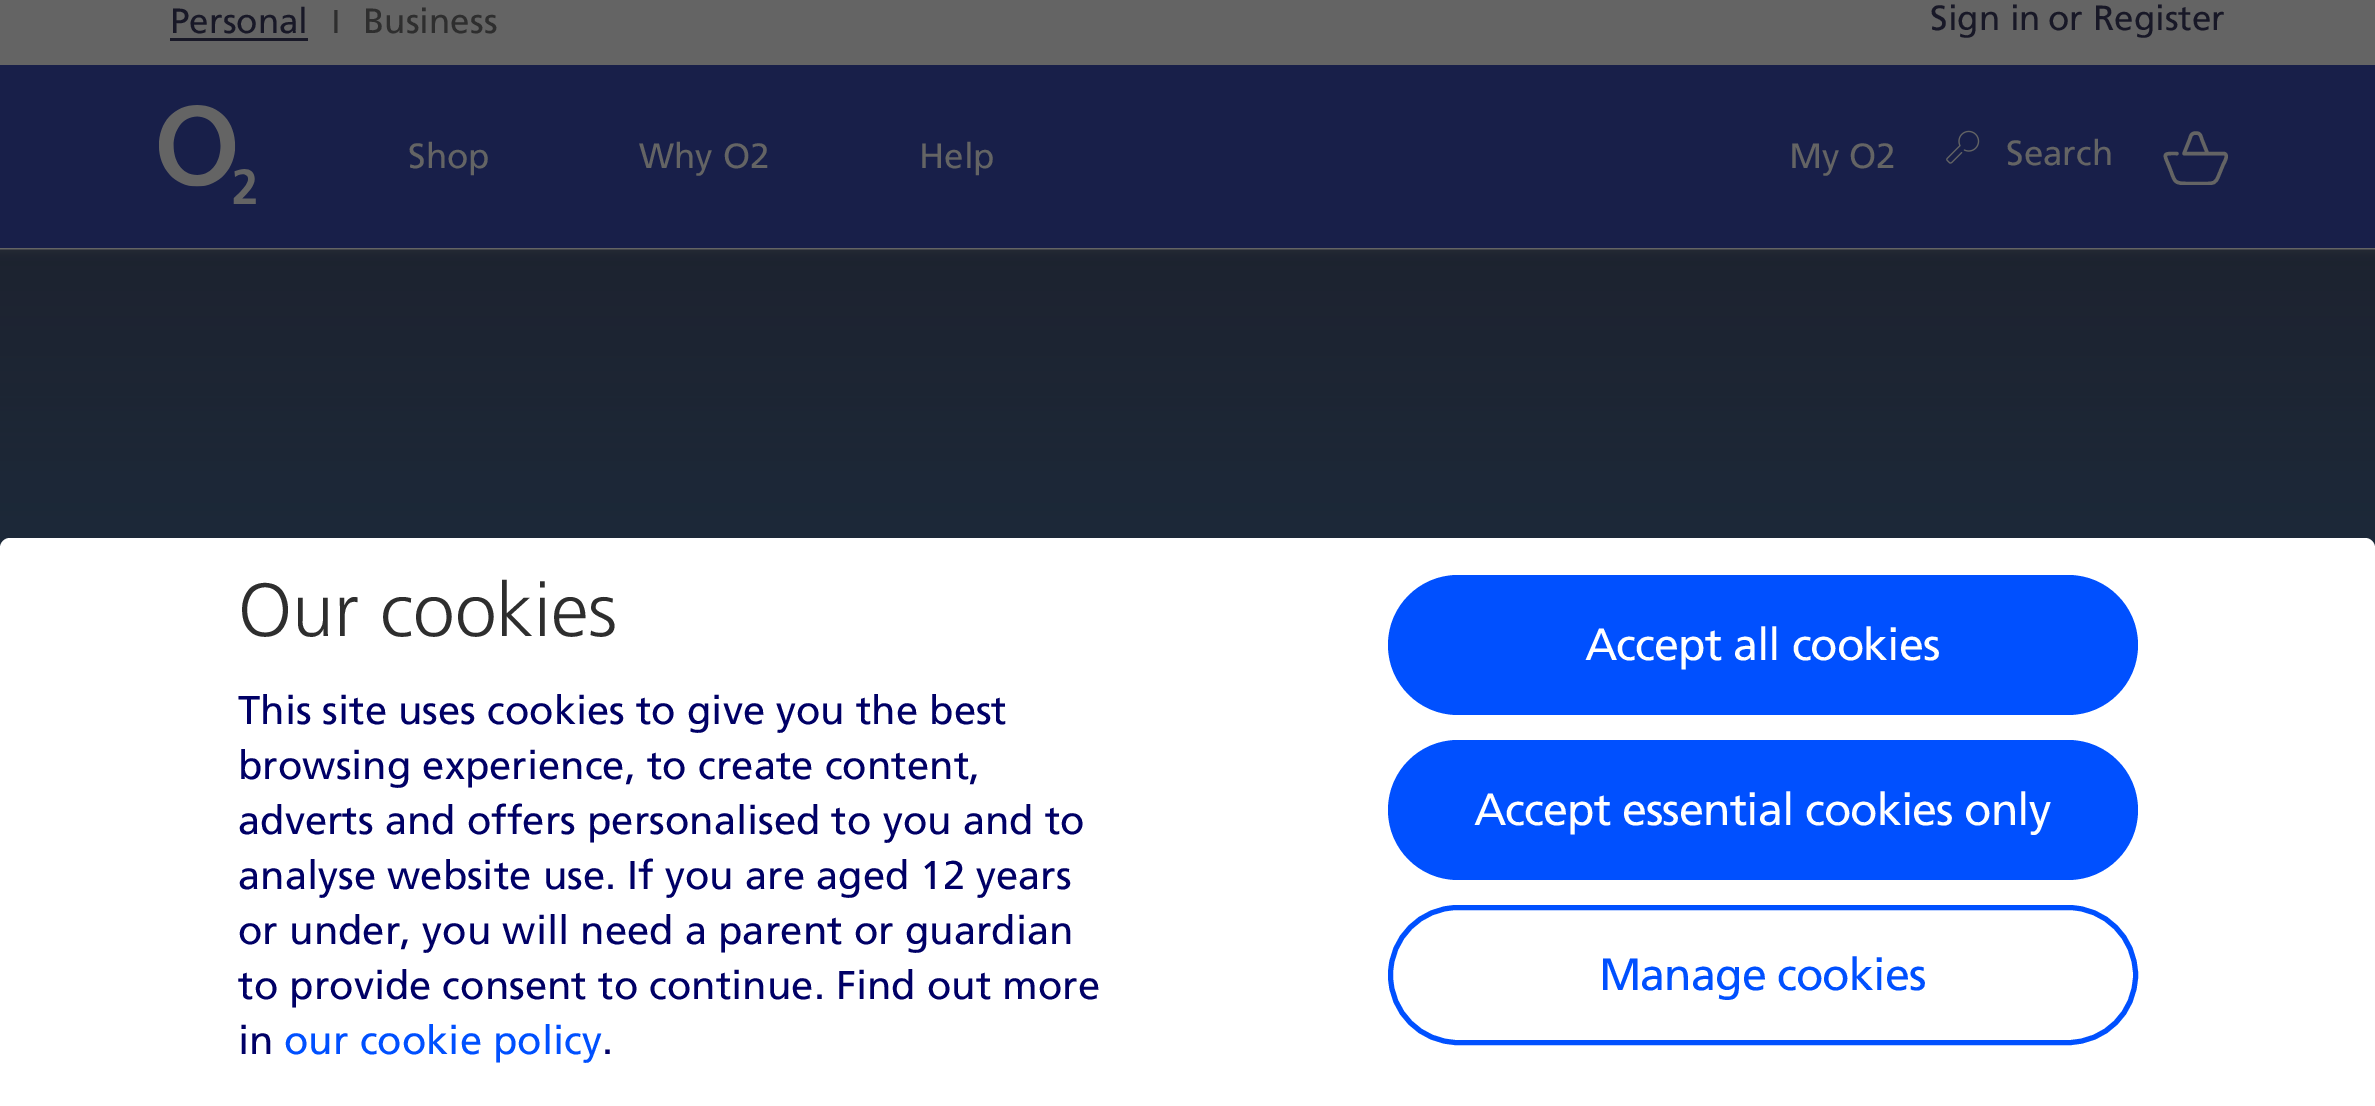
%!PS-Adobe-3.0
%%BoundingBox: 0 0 2375 1106
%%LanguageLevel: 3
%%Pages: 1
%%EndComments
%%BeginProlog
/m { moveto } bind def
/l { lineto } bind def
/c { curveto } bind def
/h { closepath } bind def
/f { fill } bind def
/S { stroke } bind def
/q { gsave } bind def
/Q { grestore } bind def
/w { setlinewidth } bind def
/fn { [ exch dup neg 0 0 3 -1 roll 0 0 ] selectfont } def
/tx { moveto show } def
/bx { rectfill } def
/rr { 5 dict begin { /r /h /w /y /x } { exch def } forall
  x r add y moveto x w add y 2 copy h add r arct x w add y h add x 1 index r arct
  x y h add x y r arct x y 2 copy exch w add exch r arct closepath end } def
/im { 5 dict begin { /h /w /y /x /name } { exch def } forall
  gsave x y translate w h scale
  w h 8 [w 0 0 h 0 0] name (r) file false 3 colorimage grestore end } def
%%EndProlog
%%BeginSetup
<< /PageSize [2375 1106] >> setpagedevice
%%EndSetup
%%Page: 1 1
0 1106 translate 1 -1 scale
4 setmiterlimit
0.392 setgray
0 0 2375 1106 bx
0.094 0.094 0.153 setrgbcolor
170 38 138 3 bx
/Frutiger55-Regular 35 fn
(Personal) 170 33 tx
q
333 10 8 23 rectclip
0.18 setgray
(|) 332 33 tx
Q
0.18 setgray
(Business) 363 33 tx
0.094 0.094 0.153 setrgbcolor
(Sign in) 1930 30 tx
(or Register) 2048 30 tx
0.094 0.122 0.286 setrgbcolor
0 65 2375 183 bx
(image0.raw) 159 105 97 99 im
0.392 setgray
(Shop) 408 168 tx
(Why O2) 639 168 tx
(Help) 919 168 tx
(My O2) 1789 168 tx
(image1.raw) 1946 130 34 34 im
(Search) 2006 165 tx
q
2163 130 65 55 rectclip
3.4 w
1 setlinecap
1 setlinejoin
2207.5 153.5 m 2202.5 141 l 2200.5 136 2201 133 2196 133 c 2190.5 133 2191 136 2189 141 c 2184 153.5 l 2224 153.5 l 2229.5 154.5 2223.5 163.5 2223 165 c 2218.5 176 l 2215.5 183.5 2213.5 183.5 2205.5 183.5 c 2191 183.5 l 2172 183.5 2176 183 2168.5 165 c 2163.5 153 2163 153.5 2177 153.5 c S
Q
(image2.raw) 0 249 2375 299 im
1 setgray
10 538 m 2365 538 l 2370.5 538 2375 542.5 2375 548 c 2375 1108 l 0 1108 l 0 548 l 0 542.5 4.5 538 10 538 c h f
/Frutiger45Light-Light 75 fn
0.18 setgray
(Our cookies) 238 636 tx
/Frutiger55-Regular 40 fn
0 0 0.4 setrgbcolor
(This site uses cookies to give you the best) 238 724 tx
(browsing experience, to create content,) 238 779 tx
(adverts and offers personalised to you and to) 238 834 tx
(analyse website use. If you are aged 12 years) 238 889 tx
(or under, you will need a parent or guardian) 238 944 tx
(to provide consent to continue. Find out more) 238 999 tx
(in) 238 1054 tx
0 0.314 1 setrgbcolor
(our cookie policy) 284 1054 tx
0 0 0.4 setrgbcolor
(.) 602 1054 tx
0 0.314 1 setrgbcolor
1388 575 750 140 70 rr f
/Frutiger55-Regular 45 fn
1 setgray
1585 660 m -1 0 (Accept all cookies) ashow
0 0.314 1 setrgbcolor
1388 740 750 140 70 rr f
1 setgray
1474 825 m -1 0 (Accept essential cookies only) ashow
0 0.314 1 setrgbcolor
5 w
1390.5 907.5 745 135 67.5 rr S
1599 990 m -1 0 (Manage cookies) ashow
showpage
%%EOF
